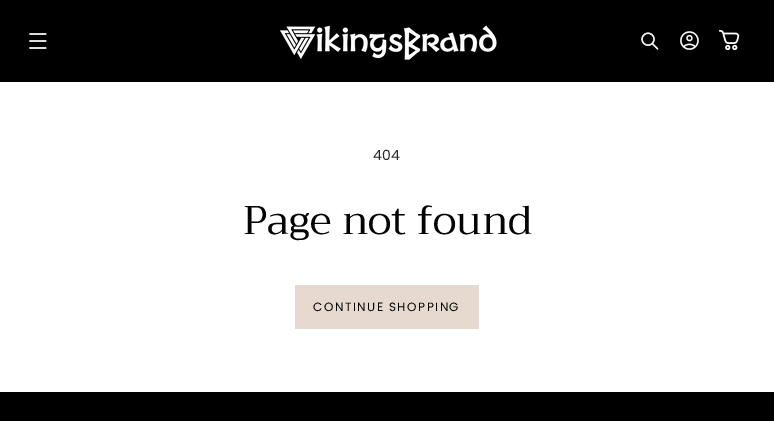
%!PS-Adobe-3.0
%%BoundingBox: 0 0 774 421
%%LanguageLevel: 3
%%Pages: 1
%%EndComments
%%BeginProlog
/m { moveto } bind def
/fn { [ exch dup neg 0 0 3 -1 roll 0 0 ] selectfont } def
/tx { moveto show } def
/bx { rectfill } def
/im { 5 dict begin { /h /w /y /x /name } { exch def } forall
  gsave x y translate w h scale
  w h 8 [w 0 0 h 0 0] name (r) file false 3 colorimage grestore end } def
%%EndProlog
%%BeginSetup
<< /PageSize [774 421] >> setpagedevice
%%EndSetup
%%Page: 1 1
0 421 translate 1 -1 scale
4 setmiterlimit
1 setgray
0 0 774 421 bx
0 setgray
0 0 774 82 bx
(image0.raw) 29 33 18 16 im
(image1.raw) 280 25 217 35 im
(image2.raw) 641 32 18 18 im
(image3.raw) 680 31 19 19 im
(image4.raw) 719 30 21 21 im
/Poppins-Regular 14 fn
0.161 setgray
(404) 373 160 tx
/Trirong-Regular 40 fn
0.012 setgray
(Page not found) 243 234 tx
0.902 0.851 0.812 setrgbcolor
295 285 184 44 bx
/Poppins-Regular 12 fn
0.012 setgray
313 311 m 1.5 0 (CONTINUE SHOPPING) ashow
0 setgray
0 392 774 29 bx
showpage
%%EOF
